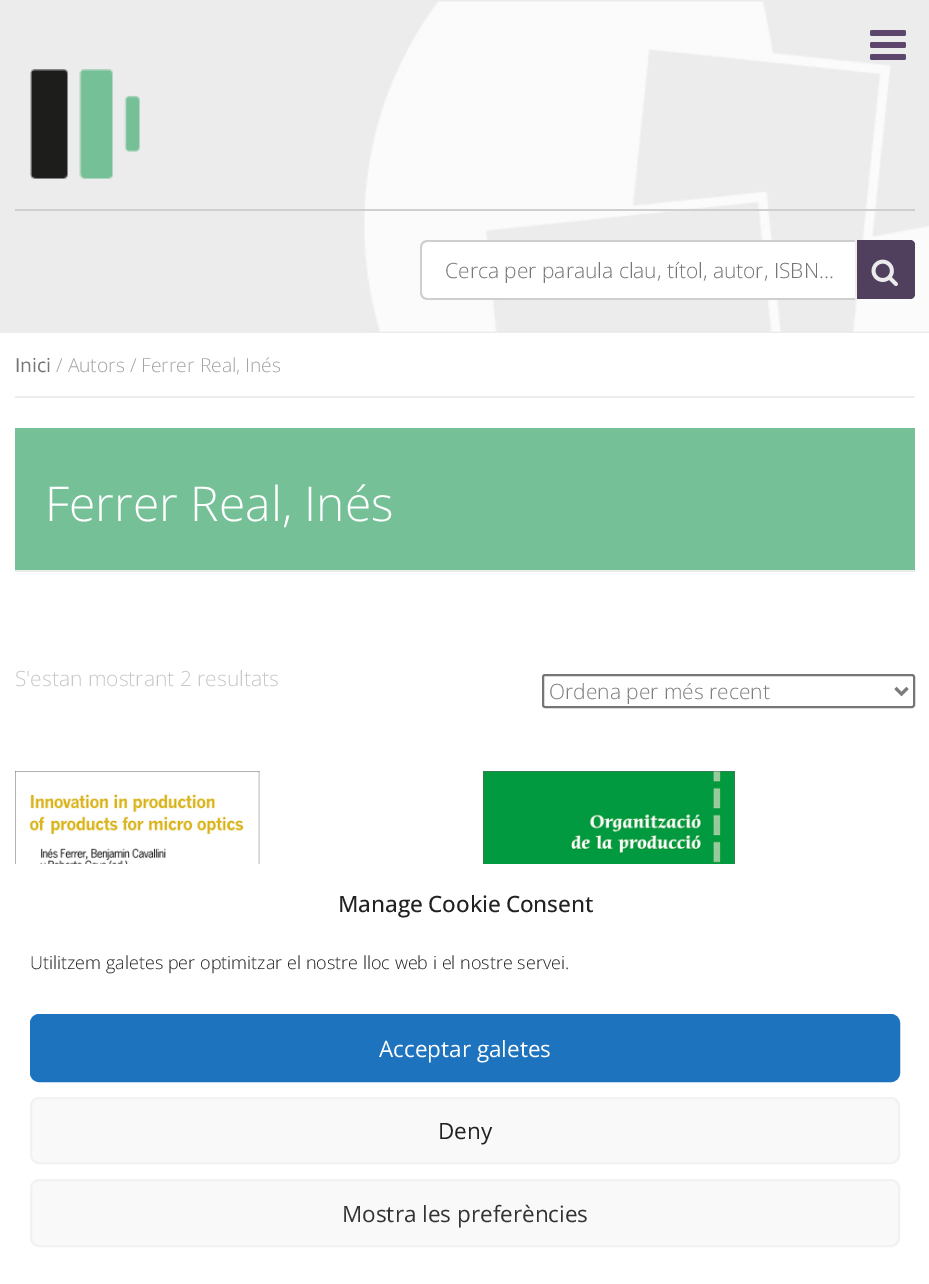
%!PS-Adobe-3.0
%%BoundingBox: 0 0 929 1284
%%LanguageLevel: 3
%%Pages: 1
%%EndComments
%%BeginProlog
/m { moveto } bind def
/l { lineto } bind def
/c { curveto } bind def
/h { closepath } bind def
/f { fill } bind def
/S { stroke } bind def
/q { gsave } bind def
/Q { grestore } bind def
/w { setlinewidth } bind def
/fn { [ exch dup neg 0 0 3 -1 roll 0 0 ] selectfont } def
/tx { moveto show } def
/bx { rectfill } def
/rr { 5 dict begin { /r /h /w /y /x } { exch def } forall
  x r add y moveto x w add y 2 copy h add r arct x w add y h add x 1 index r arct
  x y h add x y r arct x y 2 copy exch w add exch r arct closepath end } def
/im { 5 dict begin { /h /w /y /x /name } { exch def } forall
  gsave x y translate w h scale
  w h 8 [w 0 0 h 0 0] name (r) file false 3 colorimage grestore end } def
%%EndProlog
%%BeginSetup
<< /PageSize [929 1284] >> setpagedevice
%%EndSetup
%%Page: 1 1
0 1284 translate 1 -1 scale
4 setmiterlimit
1 setgray
0 0 929 1284 bx
0.925 setgray
0 0 929 333 bx
(image0.raw) 364 1 565 331 im
(image1.raw) 870 30 36 30 im
(image2.raw) 30 69 110 110 im
0.812 setgray
15 209 900 2 bx
1 setgray
428 240 m 855 240 l 855 300 l 428 300 l 423.5 300 420 296.5 420 292 c 420 248 l 420 243.5 423.5 240 428 240 c h f
0.812 setgray
428 240 m 855 240 l 855 300 l 428 300 l 423 300 420 297 420 292 c 420 248 l 420 243 423 240 428 240 c h 428 242 m 855 242 l 855 298 l 428 298 l 424 298 422 296 422 292 c 422 248 l 422 244 424 242 428 242 c h eofill
/OpenSans-Light 21 fn
0.459 setgray
(Cerca per paraula clau, títol, autor, ISBN...) 445 278 tx
0.318 0.247 0.369 setrgbcolor
857 240 m 910 240 l 913 240 915 242 915 245 c 915 294 l 915 297 913 299 910 299 c 857 299 l h f
(image3.raw) 871 259 27 27 im
0.929 setgray
15 396 900 2 bx
/OpenSans-Regular 19.25 fn
0.459 setgray
(Inici) 15 372 tx
/OpenSans-Light 19.25 fn
0.639 setgray
(/ Autors / Ferrer Real, Inés) 56 372 tx
0.463 0.753 0.596 setrgbcolor
15 428 900 142 bx
0.922 0.925 0.922 setrgbcolor
15 570 900 2 bx
/OpenSans-Light 48 fn
1 setgray
(Ferrer Real, Inés) 45 521 tx
/OpenSans-Light 21 fn
0.78 setgray
(S'estan mostrant 2 resultats) 15 686 tx
0.463 setgray
2 w
543 675 371 32 2 rr S
0.486 setgray
3 w
895.5 688 m 901.5 694 l 907.5 688 l S
(Ordena per més recent) 549 699 tx
(image4.raw) 15 771 245 94 im
(image5.raw) 483 771 252 93 im
1 setgray
0 864 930 420 18 rr f
/OpenSans-Medium 22.5 fn
0.133 setgray
338 912 m -1 0 32 (Manage Cookie Consent) widthshow
/OpenSans-Light 18 fn
(Utilitzem galetes per optimitzar el nostre lloc web i el nostre servei.) 30 969 tx
0.118 0.451 0.745 setrgbcolor
31 1015 868 66 8 rr q f Q
2 w
S
/OpenSans-Regular 22.5 fn
1 setgray
(Acceptar galetes) 379 1057 tx
0.976 setgray
31 1098 868 65 8 rr q f Q
0.949 setgray
S
0.133 setgray
(Deny) 438 1139 tx
0.976 setgray
31 1180 868 66 8 rr q f Q
0.949 setgray
S
0.2 setgray
(Mostra les preferències) 342 1222 tx
showpage
%%EOF
